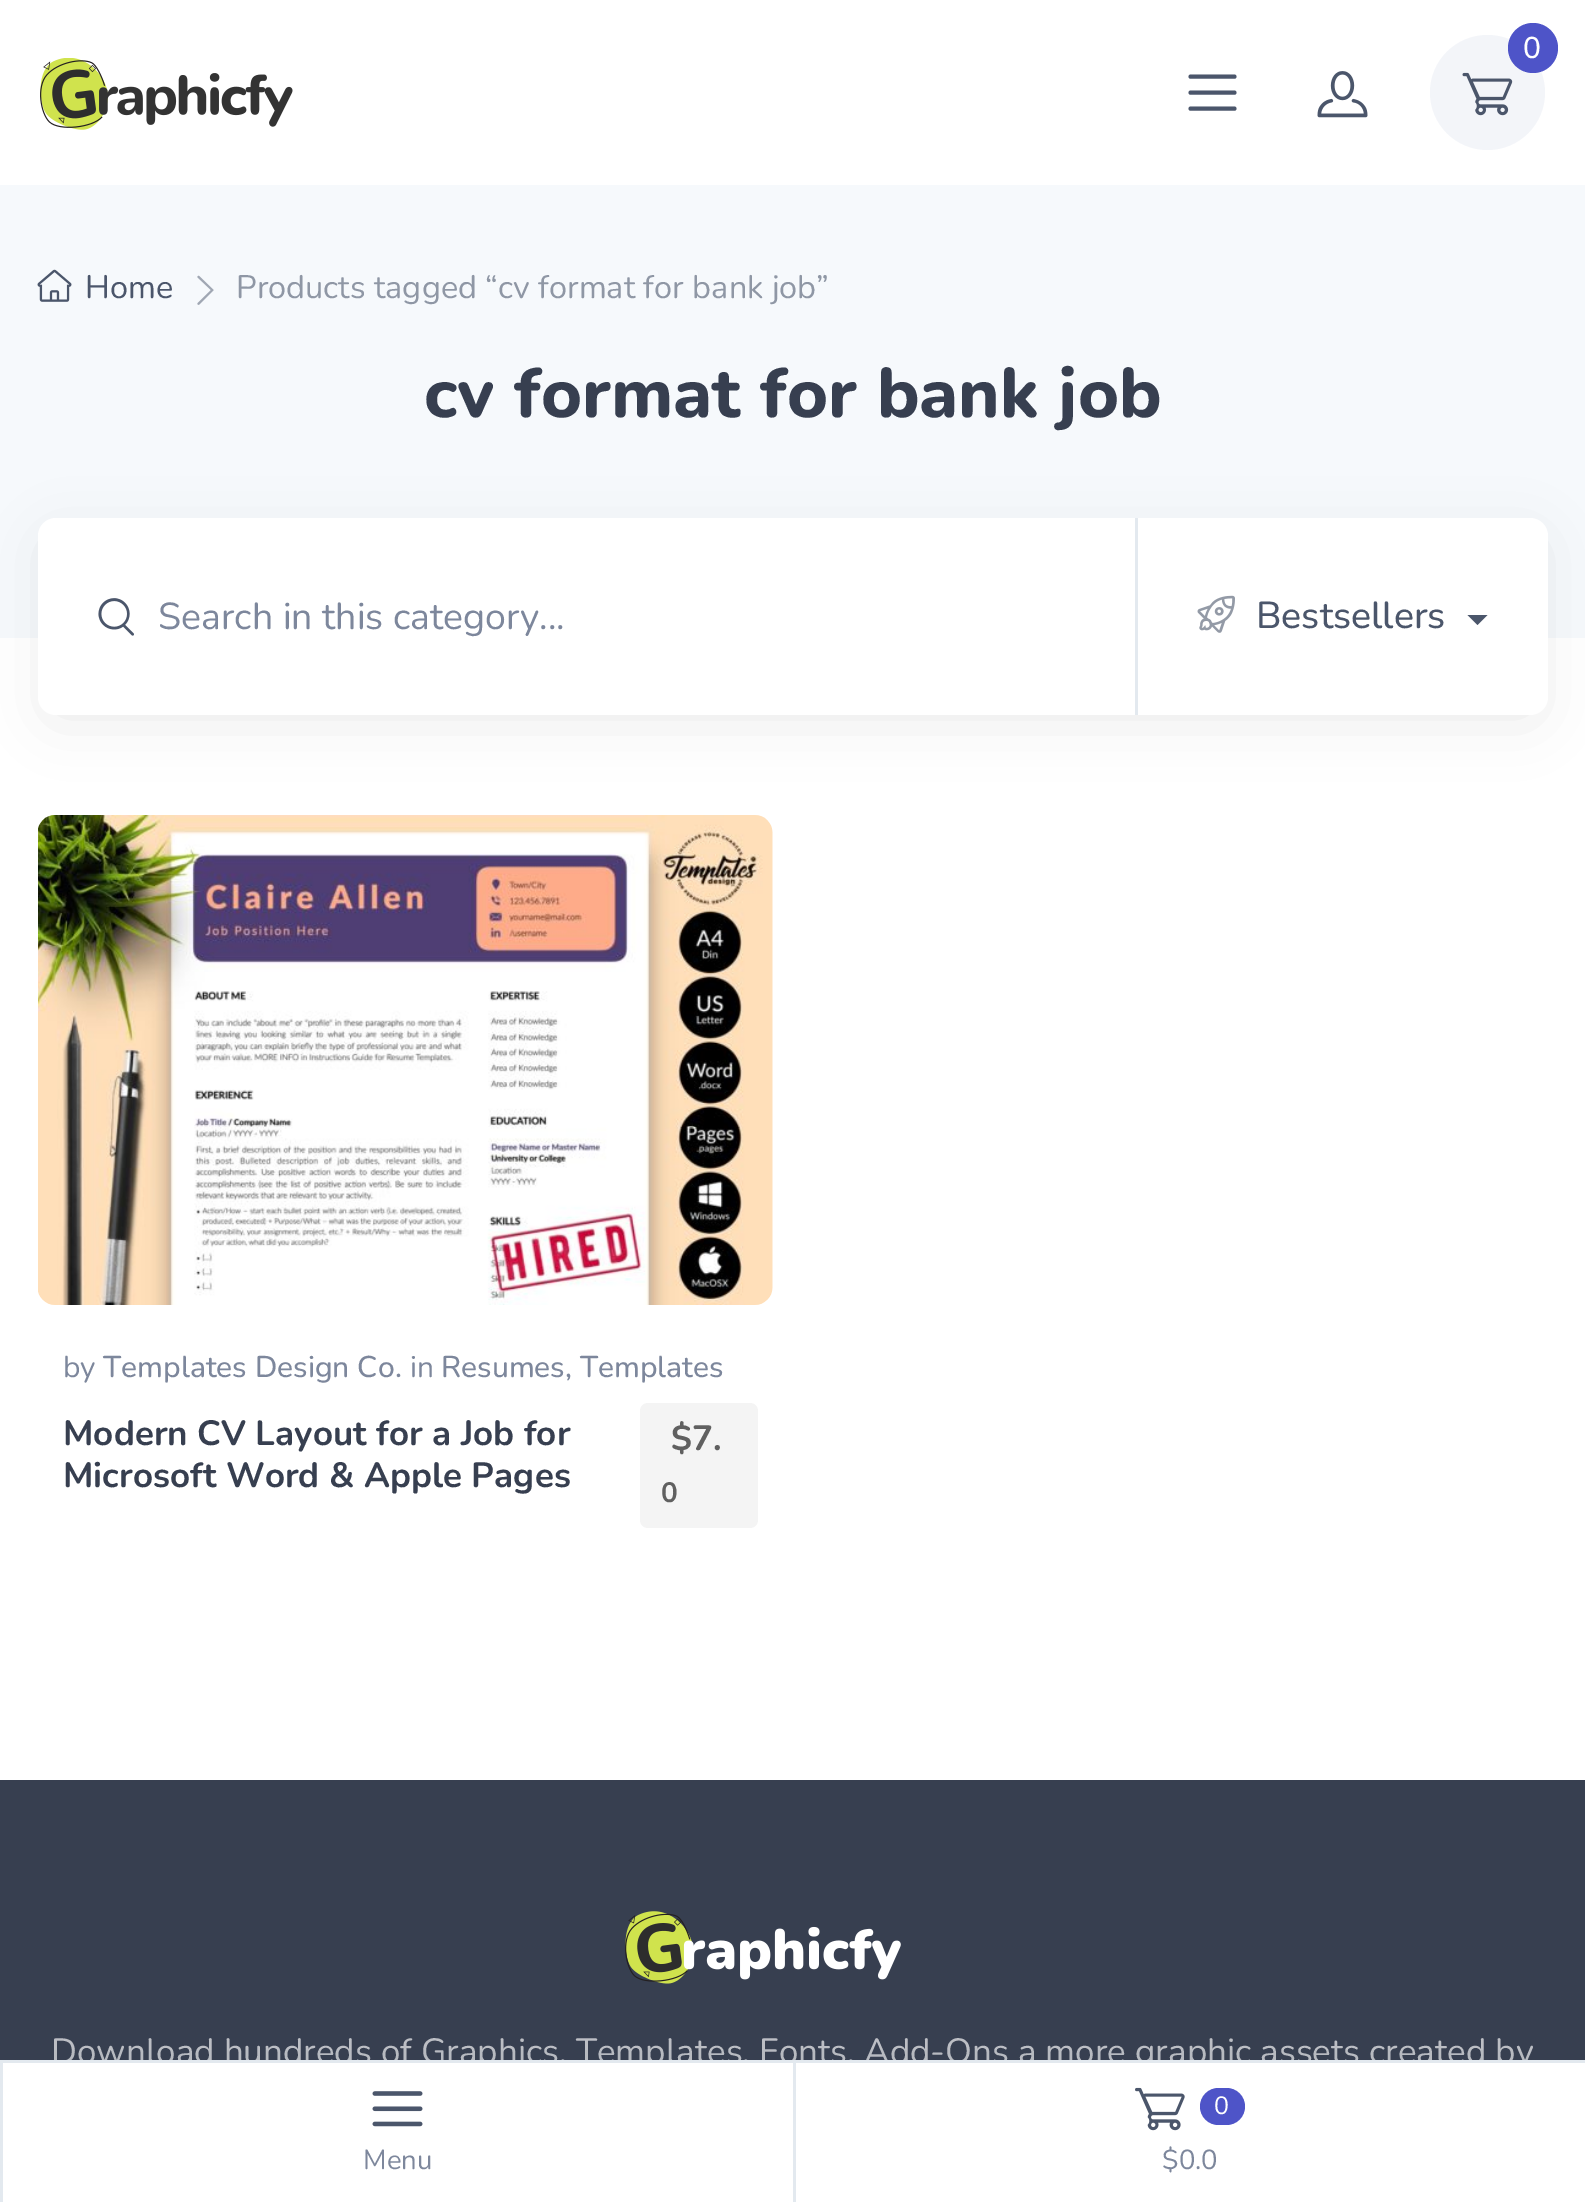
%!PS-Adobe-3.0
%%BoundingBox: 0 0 1585 2202
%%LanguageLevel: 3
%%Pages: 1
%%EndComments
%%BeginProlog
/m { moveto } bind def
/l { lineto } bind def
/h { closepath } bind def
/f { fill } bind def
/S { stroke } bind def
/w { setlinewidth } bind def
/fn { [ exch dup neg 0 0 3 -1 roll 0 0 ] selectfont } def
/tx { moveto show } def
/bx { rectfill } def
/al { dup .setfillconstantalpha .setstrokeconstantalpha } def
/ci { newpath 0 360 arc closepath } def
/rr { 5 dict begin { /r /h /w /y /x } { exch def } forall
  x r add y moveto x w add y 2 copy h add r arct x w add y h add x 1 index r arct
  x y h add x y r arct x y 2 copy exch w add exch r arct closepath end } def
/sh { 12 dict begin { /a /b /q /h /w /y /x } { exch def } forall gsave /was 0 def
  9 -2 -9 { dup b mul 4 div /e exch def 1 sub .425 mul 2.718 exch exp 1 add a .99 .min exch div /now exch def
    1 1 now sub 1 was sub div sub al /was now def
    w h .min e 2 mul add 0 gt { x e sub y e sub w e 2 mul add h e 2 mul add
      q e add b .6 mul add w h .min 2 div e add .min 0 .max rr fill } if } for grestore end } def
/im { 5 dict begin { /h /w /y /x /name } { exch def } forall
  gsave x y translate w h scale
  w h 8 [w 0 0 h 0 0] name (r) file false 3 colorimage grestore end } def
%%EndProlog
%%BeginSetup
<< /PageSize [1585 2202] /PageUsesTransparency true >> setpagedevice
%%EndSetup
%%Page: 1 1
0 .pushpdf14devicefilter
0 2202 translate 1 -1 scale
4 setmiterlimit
1 setgray
0 0 1585 2202 bx
0.953 0.961 0.976 setrgbcolor
1487.5 92.5 57.5 ci f
(image0.raw) 1462 72 51 44 im
0.306 0.329 0.784 setrgbcolor
1533 48 25 ci f
/Nunito-Medium 30 fn
1 setgray
(0) 1523 58 tx
0.294 0.337 0.42 setrgbcolor
4 w
1 setlinecap
1190.5 76.5 m 1234.5 76.5 l 1190.5 92.5 m 1234.5 92.5 l 1190.5 108.5 m 1234.5 108.5 l S
(image1.raw) 1317 71 51 47 im
(image2.raw) 40 58 253 72 im
0.965 0.976 0.988 setrgbcolor
0 185 1585 453 bx
(image3.raw) 37 269 35 33 im
/Nunito-Regular 32.5 fn
0.294 0.337 0.42 setrgbcolor
(Home) 85 298 tx
(image4.raw) 197 275 17 30 im
0.561 0.592 0.647 setrgbcolor
(Products tagged “cv format for bank job”) 236 298 tx
/Nunito-ExtraBold 70 fn
0.216 0.247 0.314 setrgbcolor
(cv format for bank job) 424 417 tx
0 setgray
53 545 1480 168 2.5 30.5 0.1 sh
1 setgray
38 518 1510 197 18 rr f
(image5.raw) 98 598 36 38 im
/Nunito-Regular 37.5 fn
0.49 0.529 0.612 setrgbcolor
(Search in this category...) 158 629 tx
0.89 0.914 0.937 setrgbcolor
1135 518 3 197 bx
(image6.raw) 1197 595 38 38 im
/Nunito-Medium 37.5 fn
0.294 0.337 0.42 setrgbcolor
(Bestsellers) 1256 628 tx
1467.5 615 m 1487.5 615 l 1477.5 625 l h f
(image7.raw) 38 815 735 490 im
/Nunito-Regular 30 fn
0.49 0.529 0.612 setrgbcolor
(by) 63 1377 tx
/Nunito-Medium 30 fn
(Templates Design Co.) 103 1377 tx
/Nunito-Regular 30 fn
(in) 410 1377 tx
/Nunito-Medium 30 fn
(Resumes, Templates) 441 1377 tx
/Nunito-Bold 35 fn
0.216 0.247 0.314 setrgbcolor
(Modern CV Layout for a Job for) 63 1445 tx
(Microsoft Word & Apple Pages) 63 1487 tx
0.957 setgray
640 1403 118 125 8 rr f
0.376 setgray
($7.) 671 1450 tx
/Nunito-Bold 28 fn
(0) 661 1502 tx
0.216 0.247 0.314 setrgbcolor
0 1780 1585 280 bx
(image8.raw) 625 1911 276 73 im
/Nunito-Regular 35 fn
0.765 0.773 0.796 setrgbcolor
(Download hundreds of Graphics, Templates, Fonts, Add-Ons a more graphic assets created by) 51 2063 tx
0.169 0.204 0.271 setrgbcolor
-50 2060 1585 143 0 40 0.15 sh
1 setgray
3 2063 1582 139 bx
0.89 0.914 0.937 setrgbcolor
0 2060 1585 3 bx
0 2063 3 139 bx
(image9.raw) 372 2091 51 36 im
/Nunito-Regular 27.5 fn
0.49 0.529 0.612 setrgbcolor
(Menu) 363 2169 tx
0.89 0.914 0.937 setrgbcolor
793 2063 3 139 bx
(image10.raw) 1135 2087 50 44 im
0.306 0.329 0.784 setrgbcolor
1200 2088 45 37 18.5 rr f
/Nunito-Regular 25 fn
1 setgray
(0) 1214 2114 tx
/Nunito-Regular 27.5 fn
0.49 0.529 0.612 setrgbcolor
($0.0) 1162 2169 tx
.poppdf14devicefilter showpage
%%EOF
